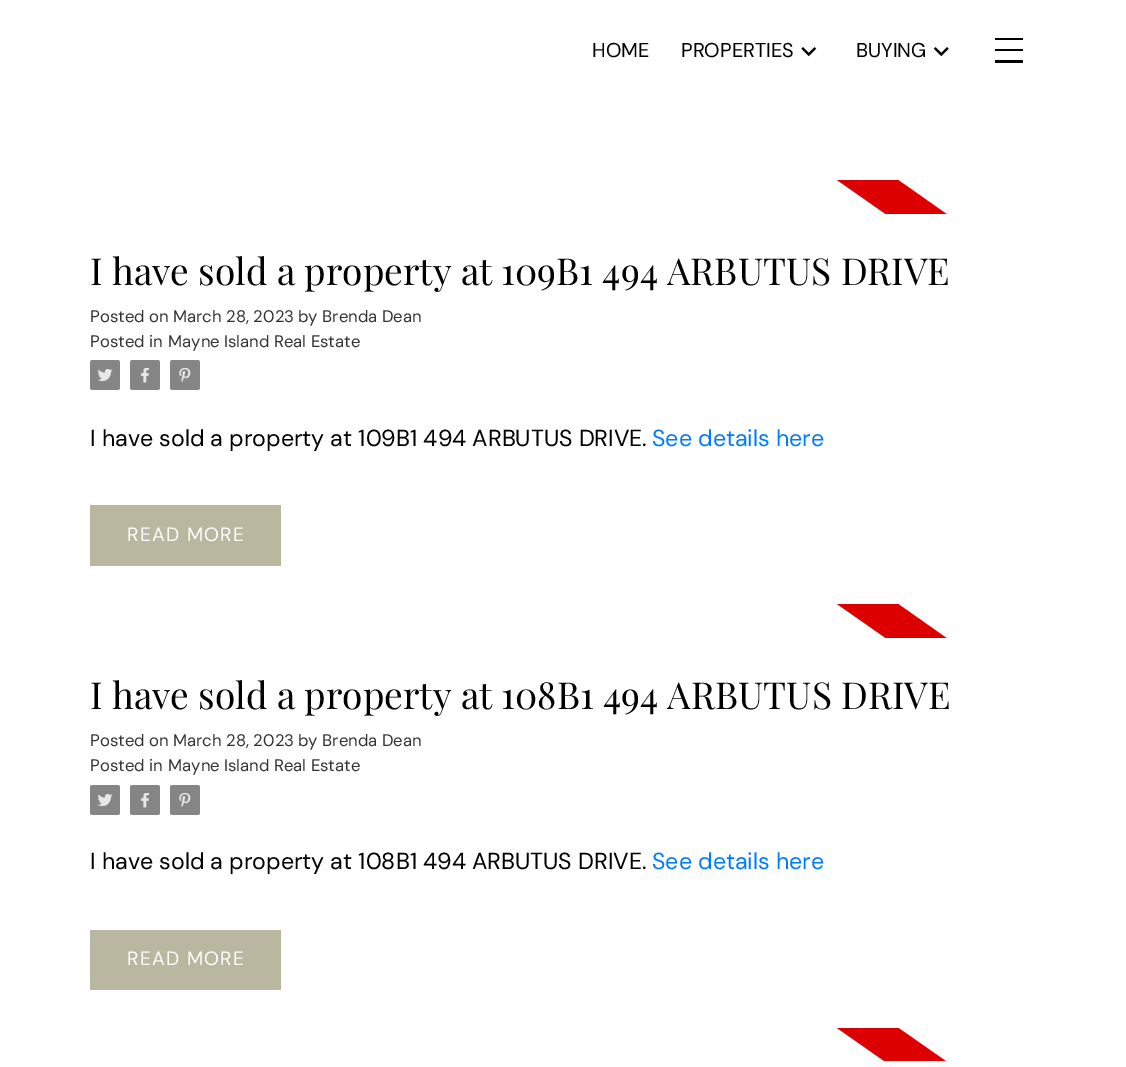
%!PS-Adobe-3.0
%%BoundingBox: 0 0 1126 1067
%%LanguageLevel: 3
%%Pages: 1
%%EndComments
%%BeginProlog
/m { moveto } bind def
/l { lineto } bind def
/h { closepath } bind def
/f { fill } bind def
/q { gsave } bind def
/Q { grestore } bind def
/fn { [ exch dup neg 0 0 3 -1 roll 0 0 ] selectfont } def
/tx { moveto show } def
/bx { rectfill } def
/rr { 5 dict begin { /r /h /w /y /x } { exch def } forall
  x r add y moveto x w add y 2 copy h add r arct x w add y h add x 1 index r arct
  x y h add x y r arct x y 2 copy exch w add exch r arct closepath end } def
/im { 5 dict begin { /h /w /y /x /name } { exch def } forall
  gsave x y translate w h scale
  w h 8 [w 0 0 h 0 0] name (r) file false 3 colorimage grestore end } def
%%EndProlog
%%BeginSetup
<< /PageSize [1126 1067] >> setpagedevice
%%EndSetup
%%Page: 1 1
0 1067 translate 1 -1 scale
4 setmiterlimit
1 setgray
0 0 1126 1067 bx
/DMSans-Regular 20 fn
0 setgray
(HOME) 592 57 tx
(PROPERTIES) 681 57 tx
(image0.raw) 801 47 16 10 im
(BUYING) 856 57 tx
(image1.raw) 933 47 16 10 im
995 38 28 2 bx
995 49 28 2 bx
995 60 28 3 bx
q
90 180 946 34 rectclip
0.867 0 0 setrgbcolor
837 137 m 1093 317 l 1073 345 l 817 166 l h f
Q
/PlayfairDisplay-Regular 37.1 fn
(I have sold a property at 109B1 494 ARBUTUS DRIVE) 90 285 tx
/DMSans-Regular 16.75 fn
0.2 setgray
(Posted on March 28, 2023) 90 322 tx
(by Brenda Dean) 298 322 tx
(Posted in) 90 347 tx
(Mayne Island Real Estate) 168 347 tx
0.522 setgray
90 360 30 30 2.5 rr f
(image2.raw) 98 369 15 13 im
130 360 30 30 2.5 rr f
(image3.raw) 141 368 8 15 im
170 360 30 30 2.5 rr f
(image4.raw) 179 368 12 14 im
/DMSans-Regular 23.2 fn
0 setgray
(I have sold a property at 109B1 494 ARBUTUS DRIVE.) 90 446 tx
0 0.482 1 setrgbcolor
(See details here) 652 446 tx
0.729 0.718 0.631 setrgbcolor
90 505 191 61 bx
/DMSans-Regular 19.25 fn
1 setgray
127 541 m 1.25 0 (READ MORE) ashow
q
90 604 946 34 rectclip
0.867 0 0 setrgbcolor
837 561 m 1093 741 l 1073 769 l 817 590 l h f
Q
/PlayfairDisplay-Regular 37.1 fn
0 setgray
(I have sold a property at 108B1 494 ARBUTUS DRIVE) 90 709 tx
/DMSans-Regular 16.75 fn
0.2 setgray
(Posted on March 28, 2023) 90 746 tx
(by Brenda Dean) 298 746 tx
(Posted in) 90 771 tx
(Mayne Island Real Estate) 168 771 tx
0.522 setgray
90 785 30 30 2.5 rr f
(image2.raw) 98 794 15 13 im
130 785 30 30 2.5 rr f
(image3.raw) 141 793 8 15 im
170 785 30 30 2.5 rr f
(image4.raw) 179 793 12 14 im
/DMSans-Regular 23.2 fn
0 setgray
(I have sold a property at 108B1 494 ARBUTUS DRIVE.) 90 869 tx
0 0.482 1 setrgbcolor
(See details here) 652 869 tx
0.729 0.718 0.631 setrgbcolor
90 930 191 60 bx
/DMSans-Regular 19.25 fn
1 setgray
127 965 m 1.25 0 (READ MORE) ashow
q
90 1028 946 33 rectclip
0.867 0 0 setrgbcolor
837 985 m 1093 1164 l 1073 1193 l 817 1014 l h f
Q
showpage
%%EOF
